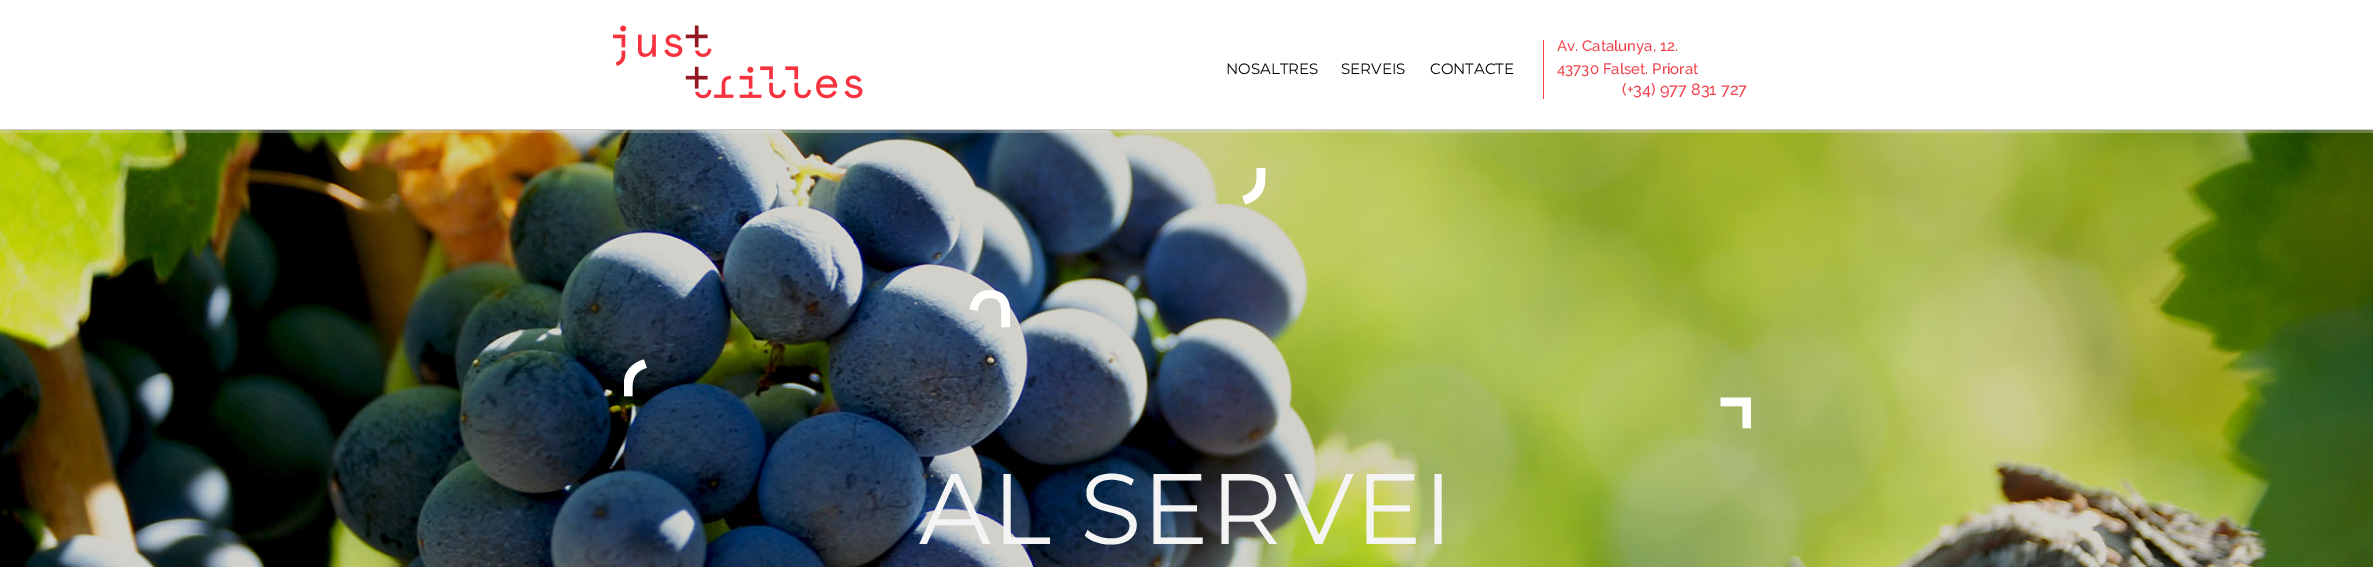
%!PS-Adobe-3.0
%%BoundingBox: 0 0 2373 567
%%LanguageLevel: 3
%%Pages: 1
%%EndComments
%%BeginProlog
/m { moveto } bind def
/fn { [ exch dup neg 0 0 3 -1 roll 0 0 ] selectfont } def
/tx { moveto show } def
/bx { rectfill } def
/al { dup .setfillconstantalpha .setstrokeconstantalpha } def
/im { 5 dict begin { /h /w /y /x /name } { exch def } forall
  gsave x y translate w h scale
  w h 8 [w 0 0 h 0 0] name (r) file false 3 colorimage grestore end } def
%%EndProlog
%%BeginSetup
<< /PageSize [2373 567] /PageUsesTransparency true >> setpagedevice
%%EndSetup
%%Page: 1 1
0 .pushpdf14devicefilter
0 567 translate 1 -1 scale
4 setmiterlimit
1 setgray
0 0 2373 567 bx
(image0.raw) 613 25 250 74 im
/Montserrat-Regular 15 fn
0 setgray
(NOSALTRES) 1226 74 tx
(SERVEIS) 1341 74 tx
(CONTACTE) 1430 74 tx
0.937 0.263 0.302 setrgbcolor
1543 40 1 59 bx
/Raleway-Medium 15 fn
(Av. Catalunya, 12.) 1557 51 tx
(43730 Falset. Priorat) 1557 74 tx
/Raleway-Medium 16.25 fn
(\(+34\) 977 831 727) 1622 95 tx
0.788 setgray
0 129 2373 1 bx
(image1.raw) 0 130 2373 437 im
0.3 al
0.898 setgray
0 130 2373 3 bx
1 al
(image2.raw) 624 168 1127 261 im
/Montserrat-Regular 100 fn
0.957 setgray
919 544 m 1.25 0 (AL SERVEI) ashow
.poppdf14devicefilter showpage
%%EOF
